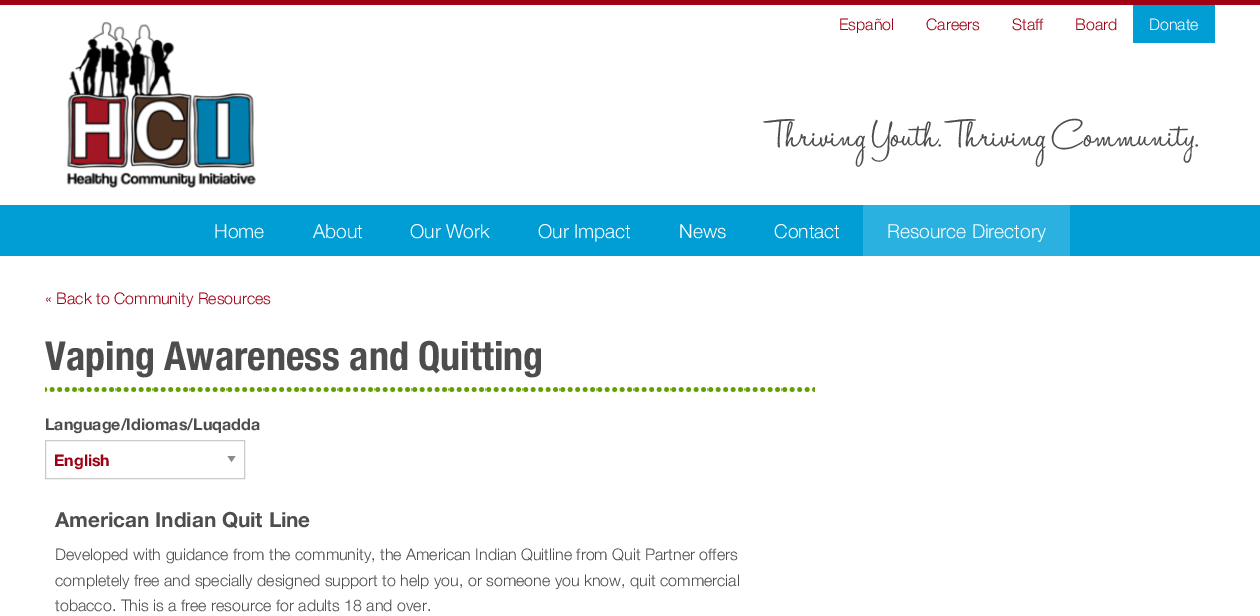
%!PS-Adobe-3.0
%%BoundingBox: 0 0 1260 616
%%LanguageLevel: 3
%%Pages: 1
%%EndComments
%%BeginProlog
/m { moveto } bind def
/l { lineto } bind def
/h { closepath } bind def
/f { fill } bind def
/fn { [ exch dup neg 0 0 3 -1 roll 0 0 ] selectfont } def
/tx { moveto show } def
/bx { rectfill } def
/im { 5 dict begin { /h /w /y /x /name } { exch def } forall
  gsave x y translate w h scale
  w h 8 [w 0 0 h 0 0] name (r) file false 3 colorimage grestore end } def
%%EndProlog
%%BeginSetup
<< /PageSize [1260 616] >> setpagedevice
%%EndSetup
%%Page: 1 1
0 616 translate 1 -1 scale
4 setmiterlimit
1 setgray
0 0 1260 616 bx
0.627 0 0.075 setrgbcolor
0 0 1260 5 bx
(image0.raw) 66 22 190 166 im
/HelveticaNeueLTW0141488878-Light 16 fn
(Español) 839 30 tx
(Careers) 926 30 tx
(Staff) 1012 30 tx
(Board) 1075 30 tx
0 0.62 0.831 setrgbcolor
1133 5 82 38 bx
1 setgray
(Donate) 1149 30 tx
/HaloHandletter-Regular 45.5 fn
0.302 setgray
(Thriving Youth. Thriving Community.) 767 147 tx
0 0.62 0.831 setrgbcolor
0 205 1260 51 bx
/HelveticaNeueLTW0141488878-Light 19.25 fn
1 setgray
(Home) 214 238 tx
(About) 313 238 tx
(Our Work) 410 238 tx
(Our Impact) 538 238 tx
(News) 679 238 tx
(Contact) 774 238 tx
0.165 0.694 0.875 setrgbcolor
863 205 207 51 bx
1 setgray
(Resource Directory) 887 238 tx
/HelveticaNeueLTW0141488878-Light 16 fn
0.627 0 0.075 setrgbcolor
(« Back to Community Resources) 45 304 tx
(image1.raw) 45 387 770 5 im
/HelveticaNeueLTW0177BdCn-Bold 40 fn
0.302 setgray
(Vaping Awareness and Quitting) 45 370 tx
/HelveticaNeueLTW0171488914-Bold 16 fn
(Language/Idiomas/Luqadda) 45 430 tx
0.541 setgray
227.5 456 m 235.5 456 l 231.5 462 l h f
0.792 setgray
45.5 440.5 199 38 rectstroke
0.627 0 0.075 setrgbcolor
(English) 54 466 tx
/HelveticaNeueLTW0171488914-Bold 20.75 fn
0.302 setgray
(American Indian Quit Line) 55 527 tx
/HelveticaNeueLTW0141488878-Light 16 fn
(Developed with guidance from the community, the American Indian Quitline from Quit Partner offers) 55 560 tx
(completely free and specially designed support to help you, or someone you know, quit commercial) 55 586 tx
(tobacco. This is a free resource for adults 18 and over.) 55 611 tx
showpage
%%EOF
